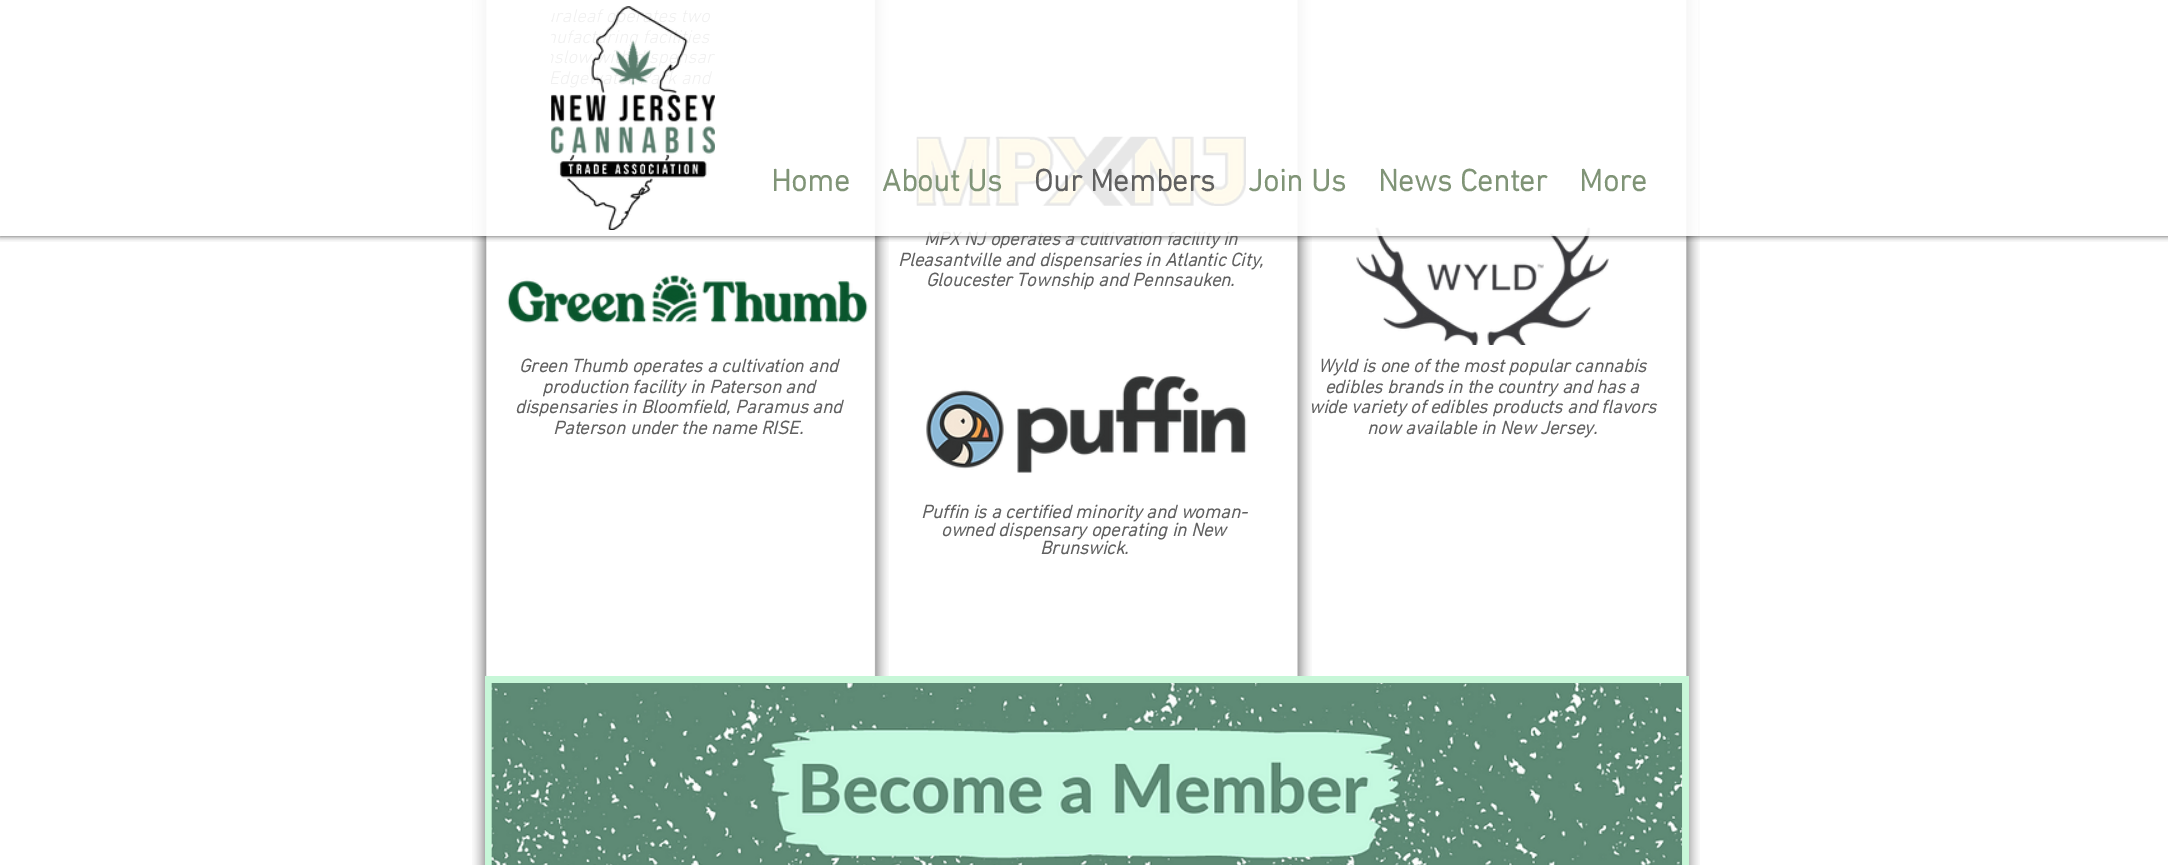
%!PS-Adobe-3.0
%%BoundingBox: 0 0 2168 865
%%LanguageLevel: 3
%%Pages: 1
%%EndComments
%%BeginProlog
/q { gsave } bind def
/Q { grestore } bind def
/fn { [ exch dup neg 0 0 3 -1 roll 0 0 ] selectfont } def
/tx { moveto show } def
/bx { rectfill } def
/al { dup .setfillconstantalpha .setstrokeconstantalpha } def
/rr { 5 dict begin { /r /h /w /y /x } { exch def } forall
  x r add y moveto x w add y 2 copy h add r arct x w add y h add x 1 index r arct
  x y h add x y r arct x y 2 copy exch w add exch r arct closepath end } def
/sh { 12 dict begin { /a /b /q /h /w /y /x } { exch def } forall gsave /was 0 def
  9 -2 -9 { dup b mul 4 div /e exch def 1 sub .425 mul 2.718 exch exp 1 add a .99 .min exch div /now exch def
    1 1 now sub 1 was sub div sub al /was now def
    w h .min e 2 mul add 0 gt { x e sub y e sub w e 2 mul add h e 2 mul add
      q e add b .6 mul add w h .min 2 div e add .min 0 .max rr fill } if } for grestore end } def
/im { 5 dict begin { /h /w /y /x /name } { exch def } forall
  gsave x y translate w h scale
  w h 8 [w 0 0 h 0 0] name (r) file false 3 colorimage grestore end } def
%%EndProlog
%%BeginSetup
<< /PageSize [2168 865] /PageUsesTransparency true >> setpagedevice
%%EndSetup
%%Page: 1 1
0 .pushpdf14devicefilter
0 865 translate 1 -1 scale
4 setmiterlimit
1 setgray
0 0 2168 865 bx
(image1.raw) 472 0 15 865 im
(image2.raw) 874 0 15 676 im
(image3.raw) 916 136 330 70 im
(image4.raw) 1297 0 15 676 im
(image5.raw) 1686 0 14 865 im
(image7.raw) 1356 227 253 118 im
q
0 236 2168 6 rectclip
0 setgray
0 0 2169 236 0 3 0.7 sh
Q
/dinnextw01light-BoldItalic 18.75 fn
0.376 setgray
(MPX NJ operates a cultivation facility in) 924 245 tx
0.6 al
1 setgray
472 0 1228 236 bx
0.76 al
473 0 1225 236 bx
1 al
(image0.raw) 551 6 164 224 im
/dinnextw01light-Bold 31.25 fn
0.502 0.58 0.467 setrgbcolor
(Home) 771 191 tx
(About Us) 882 191 tx
0.376 setgray
(Our Members) 1034 191 tx
0.502 0.58 0.467 setrgbcolor
(Join Us) 1248 191 tx
(News Center) 1378 191 tx
(More) 1579 191 tx
/dinnextw01light-BoldItalic 18.75 fn
0.376 setgray
(Pleasantville and dispensaries in Atlantic City,) 898 266 tx
(Gloucester Township and Pennsauken.) 926 286 tx
(image6.raw) 507 275 361 48 im
(Green Thumb operates a cultivation and) 519 372 tx
(production facility in Paterson and) 542 393 tx
(dispensaries in Bloomfield, Paramus and) 515 413 tx
(Paterson under the name RISE.) 553 434 tx
(Wyld is one of the most popular cannabis) 1318 372 tx
(edibles brands in the country and has a) 1325 393 tx
(wide variety of edibles products and flavors) 1309 413 tx
(now available in New Jersey.) 1367 434 tx
(image8.raw) 926 376 321 97 im
(Puffin is a certified minority and woman-) 921 518 tx
(owned dispensary operating in New) 941 536 tx
(Brunswick.) 1040 554 tx
0.78 0.969 0.847 setrgbcolor
485 676 1204 189 bx
(image9.raw) 491 683 1192 182 im
.poppdf14devicefilter showpage
%%EOF
